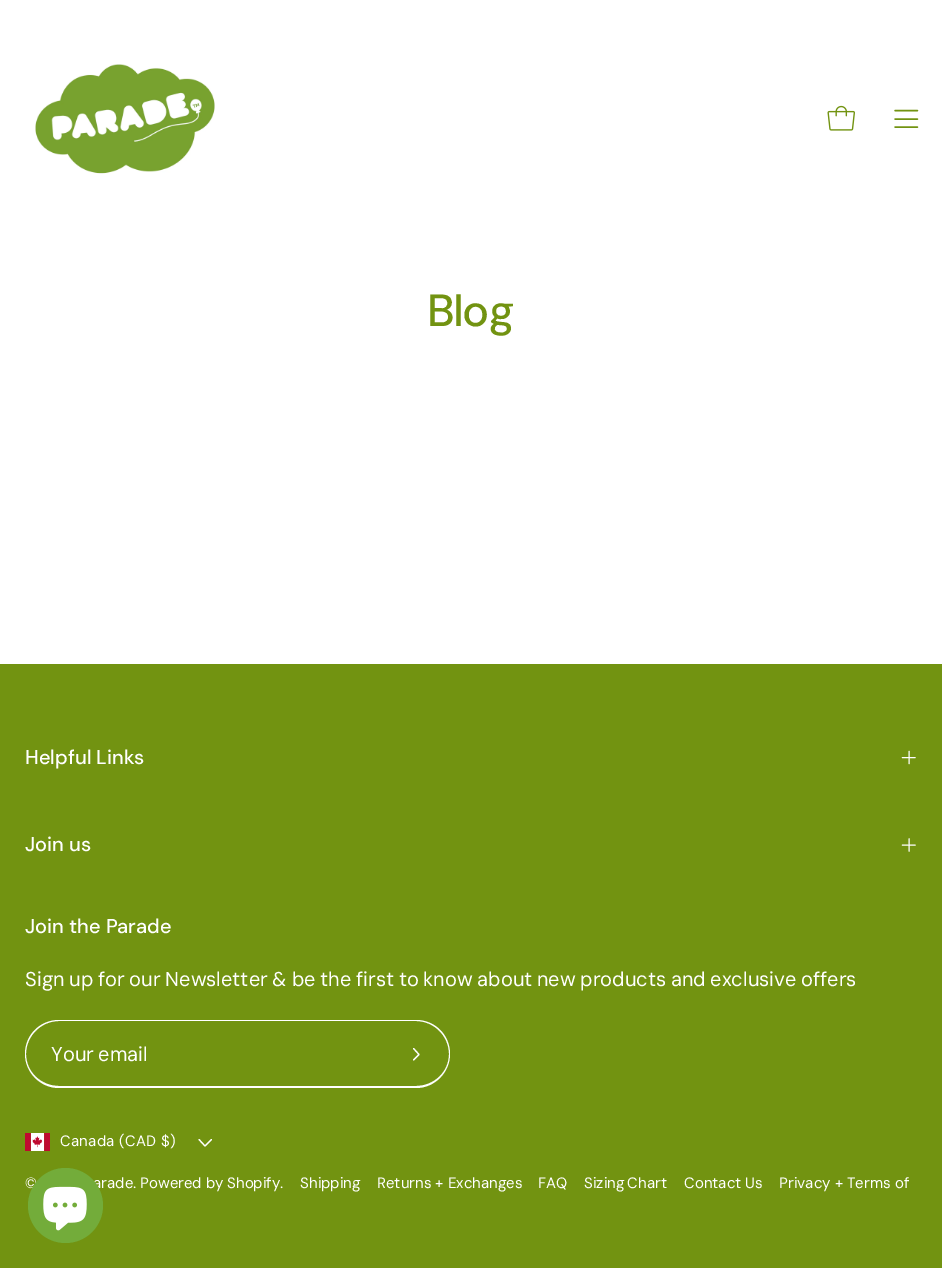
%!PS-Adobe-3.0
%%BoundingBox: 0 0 942 1268
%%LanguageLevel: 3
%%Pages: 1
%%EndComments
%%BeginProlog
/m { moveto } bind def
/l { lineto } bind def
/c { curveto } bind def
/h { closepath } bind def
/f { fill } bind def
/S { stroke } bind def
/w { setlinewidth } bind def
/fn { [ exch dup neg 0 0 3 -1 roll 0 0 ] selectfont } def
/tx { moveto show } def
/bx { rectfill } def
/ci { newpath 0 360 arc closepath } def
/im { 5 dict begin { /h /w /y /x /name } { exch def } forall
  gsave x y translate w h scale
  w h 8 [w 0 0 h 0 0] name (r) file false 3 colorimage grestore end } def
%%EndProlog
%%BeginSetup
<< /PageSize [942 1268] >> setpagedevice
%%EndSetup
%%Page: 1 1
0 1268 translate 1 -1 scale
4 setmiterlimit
1 setgray
0 0 942 1268 bx
(image0.raw) 35 64 180 110 im
(image1.raw) 827 105 28 26 im
0.447 0.576 0.067 setrgbcolor
1.4 w
1 setlinecap
1 setlinejoin
895 119 m 917.5 119 l 895 110.5 m 917.5 110.5 l 895 127 m 917.5 127 l S
/DMSans-Medium 45 fn
(Blog) 428 326 tx
0 664 942 604 bx
/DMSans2-Medium 20 fn
1 setgray
(Helpful Links) 25 764 tx
1.1 w
902.5 757.5 m 915 757.5 l 909 751.5 m 909 763.5 l S
(Join us) 25 851 tx
902.5 845 m 915 845 l 909 839 m 909 851 l S
(Join the Parade) 25 933 tx
/DMSans-Regular 20 fn
25 986 m -0.75 0 32 (Sign up for our Newsletter & be the first to know about new products and exclusive offers) widthshow
59 1020 m 382 1020 l 382 1088 l 59 1088 l 40 1088 25 1072 25 1054 c 25 1035 40 1020 59 1020 c h 59 1021 m 382 1021 l 382 1086 l 59 1086 l 41 1086 26 1072 26 1054 c 26 1036 41 1021 59 1021 c h eofill
51 1061 m -1 0 32 (Your email) widthshow
382 1020 m 416 1020 l 435 1020 450 1035 450 1054 c 450 1072 435 1088 416 1088 c 382 1088 l h 382 1021 m 416 1021 l 434 1021 449 1036 449 1054 c 449 1072 434 1086 416 1086 c 382 1086 l h eofill
1.2 w
413.5 1048.5 m 419 1054.5 l 413.5 1060 l S
(image2.raw) 25 1133 25 18 im
/DMSans-Regular 15 fn
60 1146 m 0.25 0 (Canada \(CAD $\)) ashow
211.5 1139.5 m 205 1146 l 199 1139.5 l S
(©) 25 1188 tx
(arade.) 93 1188 tx
(Powered by) 140 1188 tx
(Shopify.) 227 1188 tx
(Shipping) 300 1188 tx
(Returns + Exchanges) 377 1188 tx
(FAQ) 538 1188 tx
584 1188 m -1 0 32 (Sizing Chart) widthshow
(Contact Us) 684 1188 tx
(Privacy + Terms of) 779 1188 tx
0.451 0.675 0.227 setrgbcolor
65.5 1205.5 37.5 ci f
(image3.raw) 43 1186 44 45 im
showpage
%%EOF
